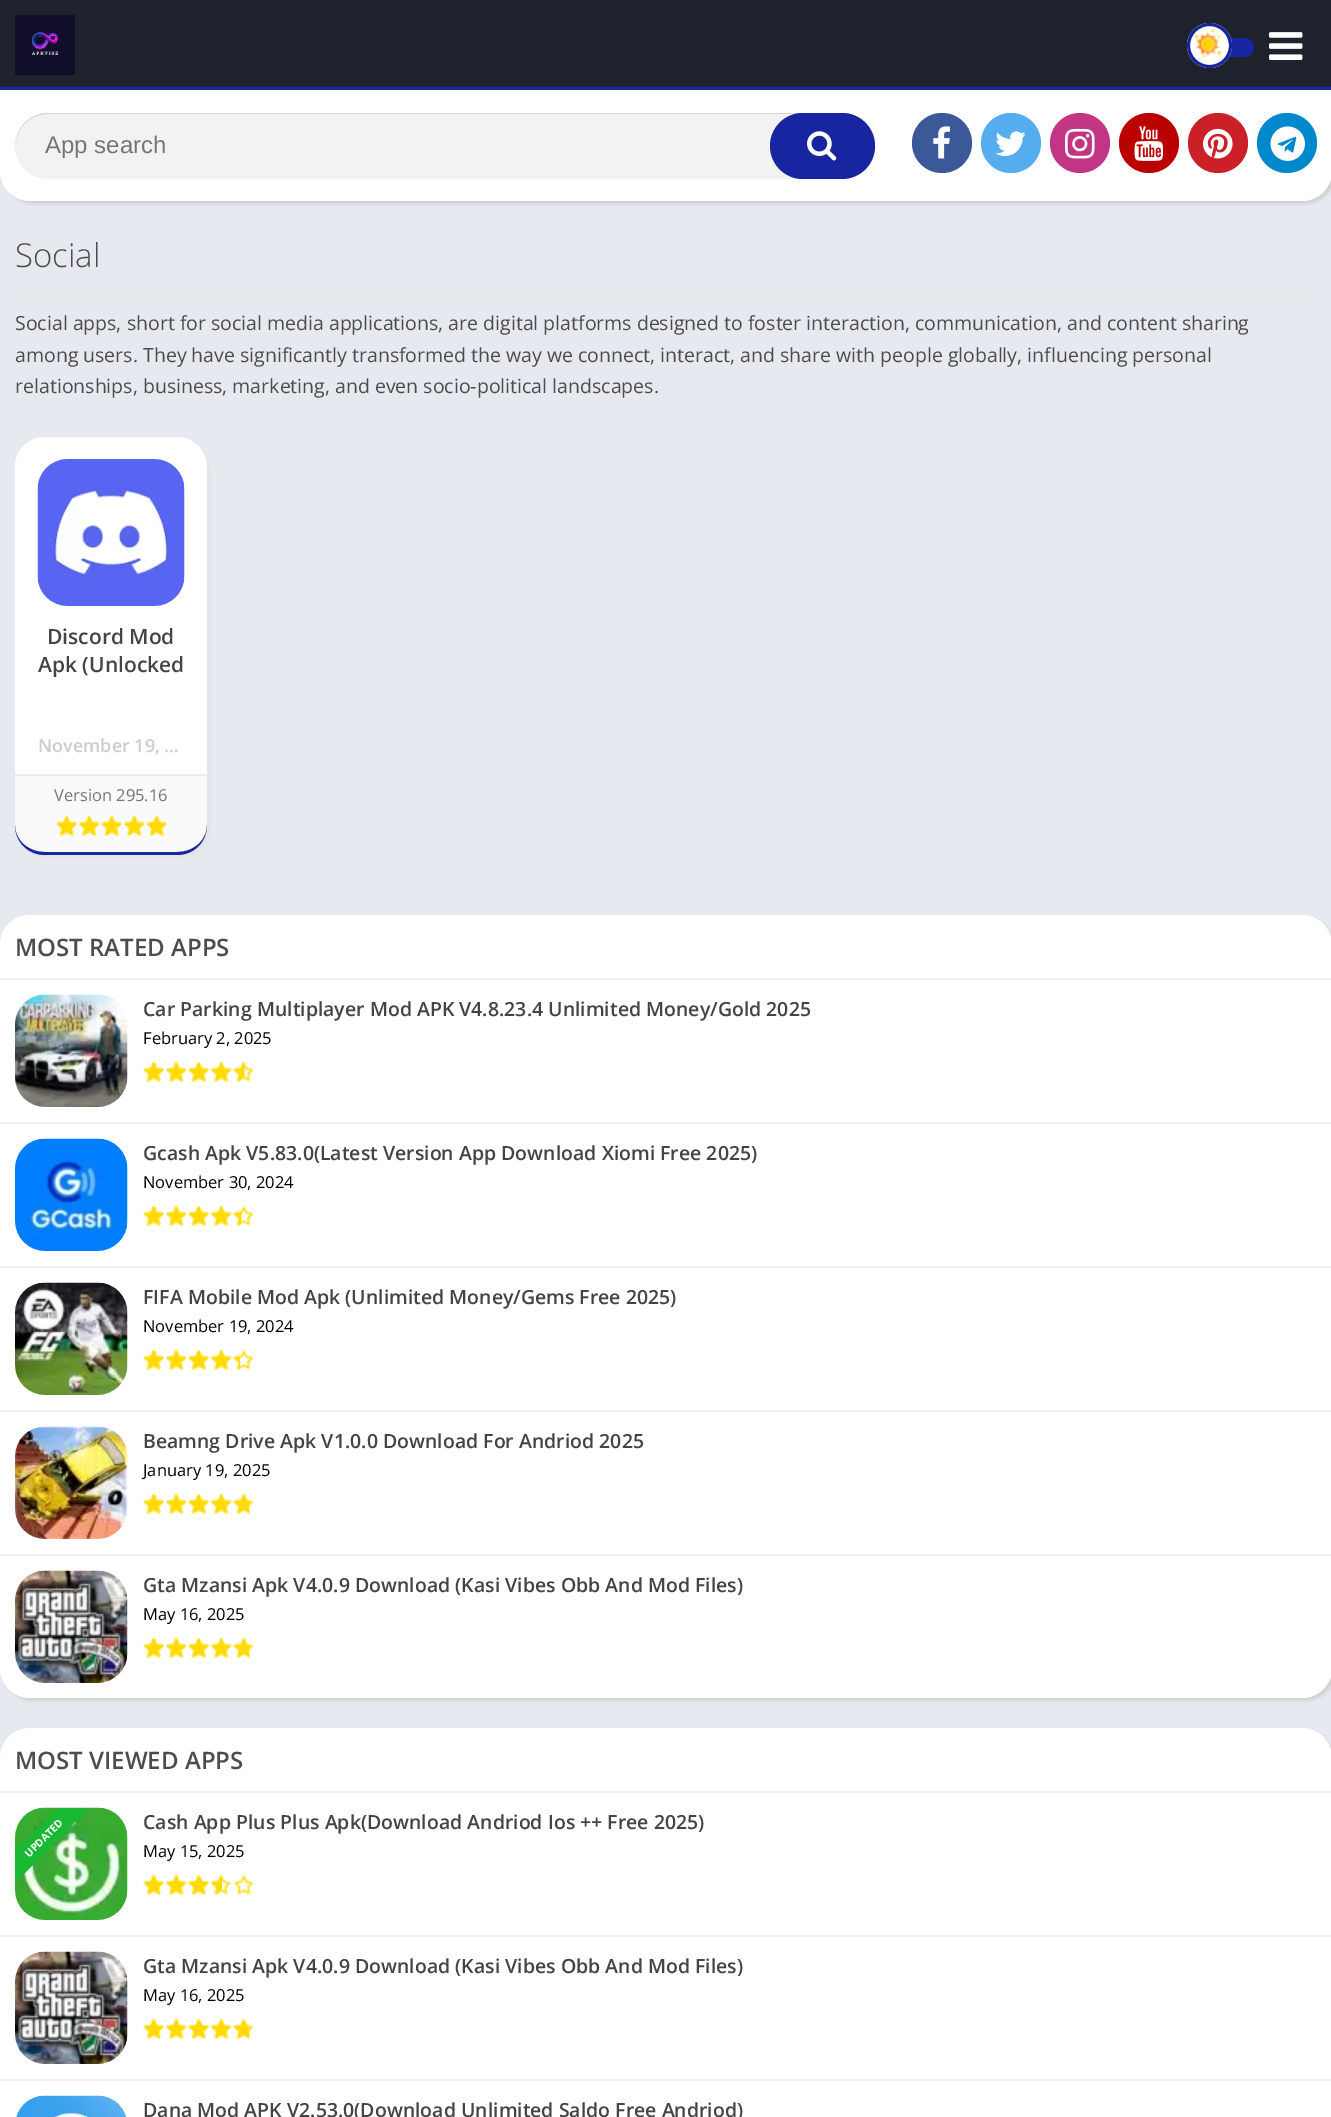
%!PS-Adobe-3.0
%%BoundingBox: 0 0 1331 2117
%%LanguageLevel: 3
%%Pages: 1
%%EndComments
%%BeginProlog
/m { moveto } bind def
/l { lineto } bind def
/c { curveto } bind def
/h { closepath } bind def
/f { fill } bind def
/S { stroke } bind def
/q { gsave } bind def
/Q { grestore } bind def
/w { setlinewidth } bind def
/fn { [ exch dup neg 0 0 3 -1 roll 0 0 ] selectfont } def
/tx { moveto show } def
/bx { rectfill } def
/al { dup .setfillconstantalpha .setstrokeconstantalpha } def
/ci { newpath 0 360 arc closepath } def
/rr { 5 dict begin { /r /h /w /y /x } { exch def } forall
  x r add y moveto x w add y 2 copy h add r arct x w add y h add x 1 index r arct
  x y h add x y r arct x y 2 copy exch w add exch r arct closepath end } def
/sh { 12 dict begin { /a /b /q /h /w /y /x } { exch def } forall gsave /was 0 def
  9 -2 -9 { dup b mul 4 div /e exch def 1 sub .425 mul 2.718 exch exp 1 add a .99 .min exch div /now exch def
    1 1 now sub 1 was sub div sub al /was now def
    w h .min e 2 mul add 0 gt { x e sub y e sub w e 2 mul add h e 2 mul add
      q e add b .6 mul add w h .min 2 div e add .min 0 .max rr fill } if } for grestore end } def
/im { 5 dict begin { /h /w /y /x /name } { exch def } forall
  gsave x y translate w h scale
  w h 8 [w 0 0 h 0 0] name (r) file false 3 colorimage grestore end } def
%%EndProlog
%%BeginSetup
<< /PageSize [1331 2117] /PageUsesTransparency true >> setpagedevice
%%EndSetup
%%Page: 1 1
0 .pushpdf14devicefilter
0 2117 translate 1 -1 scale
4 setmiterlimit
0.902 0.914 0.937 setrgbcolor
0 0 1331 2117 bx
0.114 0.133 0.176 setrgbcolor
0 0 1331 87 bx
0.824 0.82 0.82 setrgbcolor
3 93 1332 111 30 1.5 1 sh
0.094 0.145 0.627 setrgbcolor
0 87 1331 3 bx
(image0.raw) 15 15 60 60 im
1187 38 67 19 9.5 rr f
1 setgray
1209.5 45.5 22.5 ci f
(image1.raw) 1194 28 29 29 im
0.094 0.145 0.627 setrgbcolor
3 w
1209.5 45.5 21 ci S
(image2.raw) 1269 32 34 28 im
1 setgray
0 90 m 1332 90 l 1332 171 l 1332 187.5 1318.5 201 1302 201 c 30 201 l 13.5 201 0 187.5 0 171 c h f
0.949 setgray
15 113 860 66 33 rr f
0.12 al
0 setgray
48 114 m 842 114 l 860 114 874 129 874 147 c 874 154 872 161 868 167 c 883 148 873 119 849 114 c 842 113 l 48 113 l 30 113 15 128 15 147 c 15 129 30 114 48 114 c h f
/LiberationSans-Regular 24 fn
1 al
0.459 setgray
(App search) 45 153 tx
0.094 0.145 0.627 setrgbcolor
770 113 105 66 33 rr f
(image3.raw) 807 131 30 30 im
0.231 0.349 0.596 setrgbcolor
942 143 30 ci f
(image4.raw) 933 126 17 33 im
0.333 0.675 0.933 setrgbcolor
1011 143 30 ci f
(image5.raw) 995 131 31 25 im
0.757 0.208 0.518 setrgbcolor
1080 143 30 ci f
(image6.raw) 1065 128 30 31 im
0.733 0 0 setrgbcolor
1149 143 30 ci f
(image7.raw) 1134 126 30 35 im
0.796 0.125 0.153 setrgbcolor
1218 143 30 ci f
(image8.raw) 1203 128 30 31 im
0 0.533 0.8 setrgbcolor
1287 143 30 ci f
(image9.raw) 1270 126 35 35 im
0.918 setgray
15 291 1302 2 bx
/OpenSans-Light 33 fn
0.298 setgray
(Social) 15 267 tx
/OpenSans-Regular 19.5 fn
(Social apps, short for social media applications, are digital platforms designed to foster interaction, communication, and content sharing) 15 330 tx
(among users. They have significantly transformed the way we connect, interact, and share with people globally, influencing personal) 15 362 tx
(relationships, business, marketing, and even socio-political landscapes.) 15 393 tx
0.89 setgray
18 440 192 418 30 1.5 1 sh
1 setgray
15 437 192 418 30 rr f
(image10.raw) 37 459 148 147 im
/OpenSans-SemiBold 21 fn
0.267 setgray
(Discord Mod) 47 644 tx
(Apk \(Unlocked) 38 672 tx
/OpenSans-SemiBold 18 fn
0.8 setgray
(November 19, …) 38 752 tx
0.98 setgray
15 774 m 207 774 l 207 825 l 207 841.5 193.5 855 177 855 c 45 855 l 28.5 855 15 841.5 15 825 c h f
0.918 setgray
15 774 192 2 bx
0.094 0.145 0.627 setrgbcolor
45 855 m 177 855 l 194 855 207 842 207 825 c 207 840 194 852 177 852 c 45 852 l 28 852 15 840 15 825 c 15 842 28 855 45 855 c h f
/OpenSans-Regular 16.5 fn
0.459 setgray
(Version 295.16) 54 801 tx
(image11.raw) 56 815 111 21 im
(image12.raw) 56 815 111 21 im
0.824 0.82 0.82 setrgbcolor
3 918 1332 783 30 1.5 1 sh
1 setgray
0 915 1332 783 30 rr f
0.949 setgray
0 978 1331 2 bx
/OpenSans-SemiBold 24 fn
0.298 setgray
(MOST RATED APPS) 15 956 tx
0.949 setgray
0 1122 1331 2 bx
(image13.raw) 15 994 113 113 im
/OpenSans-SemiBold 19.5 fn
0.267 setgray
(Car Parking Multiplayer Mod APK V4.8.23.4 Unlimited Money/Gold 2025) 143 1016 tx
/OpenSans-Regular 16.5 fn
0 setgray
(February 2, 2025) 143 1044 tx
(image14.raw) 143 1061 111 21 im
(image15.raw) 143 1061 102 21 im
0.949 setgray
0 1266 1331 2 bx
(image16.raw) 15 1138 113 113 im
/OpenSans-SemiBold 19.5 fn
0.267 setgray
(Gcash Apk V5.83.0\(Latest Version App Download Xiomi Free 2025\)) 143 1160 tx
/OpenSans-Regular 16.5 fn
0 setgray
(November 30, 2024) 143 1188 tx
(image17.raw) 143 1205 111 21 im
(image18.raw) 143 1205 99 21 im
0.949 setgray
0 1410 1331 2 bx
(image19.raw) 15 1282 113 113 im
/OpenSans-SemiBold 19.5 fn
0.267 setgray
(FIFA Mobile Mod Apk \(Unlimited Money/Gems Free 2025\)) 143 1304 tx
/OpenSans-Regular 16.5 fn
0 setgray
(November 19, 2024) 143 1332 tx
(image20.raw) 143 1349 111 21 im
(image21.raw) 143 1349 97 21 im
0.949 setgray
0 1554 1331 2 bx
(image22.raw) 15 1426 113 113 im
/OpenSans-SemiBold 19.5 fn
0.267 setgray
(Beamng Drive Apk V1.0.0 Download For Andriod 2025) 143 1448 tx
/OpenSans-Regular 16.5 fn
0 setgray
(January 19, 2025) 143 1476 tx
(image23.raw) 143 1493 111 21 im
(image24.raw) 143 1493 106 21 im
(image25.raw) 15 1570 113 113 im
/OpenSans-SemiBold 19.5 fn
0.267 setgray
(Gta Mzansi Apk V4.0.9 Download \(Kasi Vibes Obb And Mod Files\)) 143 1592 tx
/OpenSans-Regular 16.5 fn
0 setgray
(May 16, 2025) 143 1620 tx
(image26.raw) 143 1637 111 21 im
(image27.raw) 143 1637 106 21 im
0.824 0.82 0.82 setrgbcolor
3 1731 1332 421 30 1.5 1 sh
1 setgray
0 1728 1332 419 30 rr f
0.949 setgray
0 1791 1331 2 bx
/OpenSans-SemiBold 24 fn
0.298 setgray
(MOST VIEWED APPS) 15 1769 tx
0.949 setgray
0 1935 1331 2 bx
(image28.raw) 15 1807 113 113 im
0.098 0.725 0.204 setrgbcolor
15 1851 m 58 1808 l 89 1808 l 15 1883 l h f
/OpenSans-Bold 10.5 fn
1 setgray
q 29 1858 translate -45 rotate 0 0 m (UPDATED) show Q
/OpenSans-SemiBold 19.5 fn
0.267 setgray
(Cash App Plus Plus Apk\(Download Andriod Ios ++ Free 2025\)) 143 1829 tx
/OpenSans-Regular 16.5 fn
0 setgray
(May 15, 2025) 143 1857 tx
(image29.raw) 143 1874 111 21 im
(image30.raw) 143 1874 79 21 im
0.949 setgray
0 2079 1331 2 bx
(image25.raw) 15 1951 113 113 im
/OpenSans-SemiBold 19.5 fn
0.267 setgray
(Gta Mzansi Apk V4.0.9 Download \(Kasi Vibes Obb And Mod Files\)) 143 1973 tx
/OpenSans-Regular 16.5 fn
0 setgray
(May 16, 2025) 143 2001 tx
(image14.raw) 143 2018 111 21 im
(image31.raw) 143 2018 106 21 im
(image32.raw) 16 2095 110 22 im
/OpenSans-SemiBold 19.5 fn
0.267 setgray
(Dana Mod APK V2.53.0\(Download Unlimited Saldo Free Andriod\)) 143 2117 tx
.poppdf14devicefilter showpage
%%EOF
